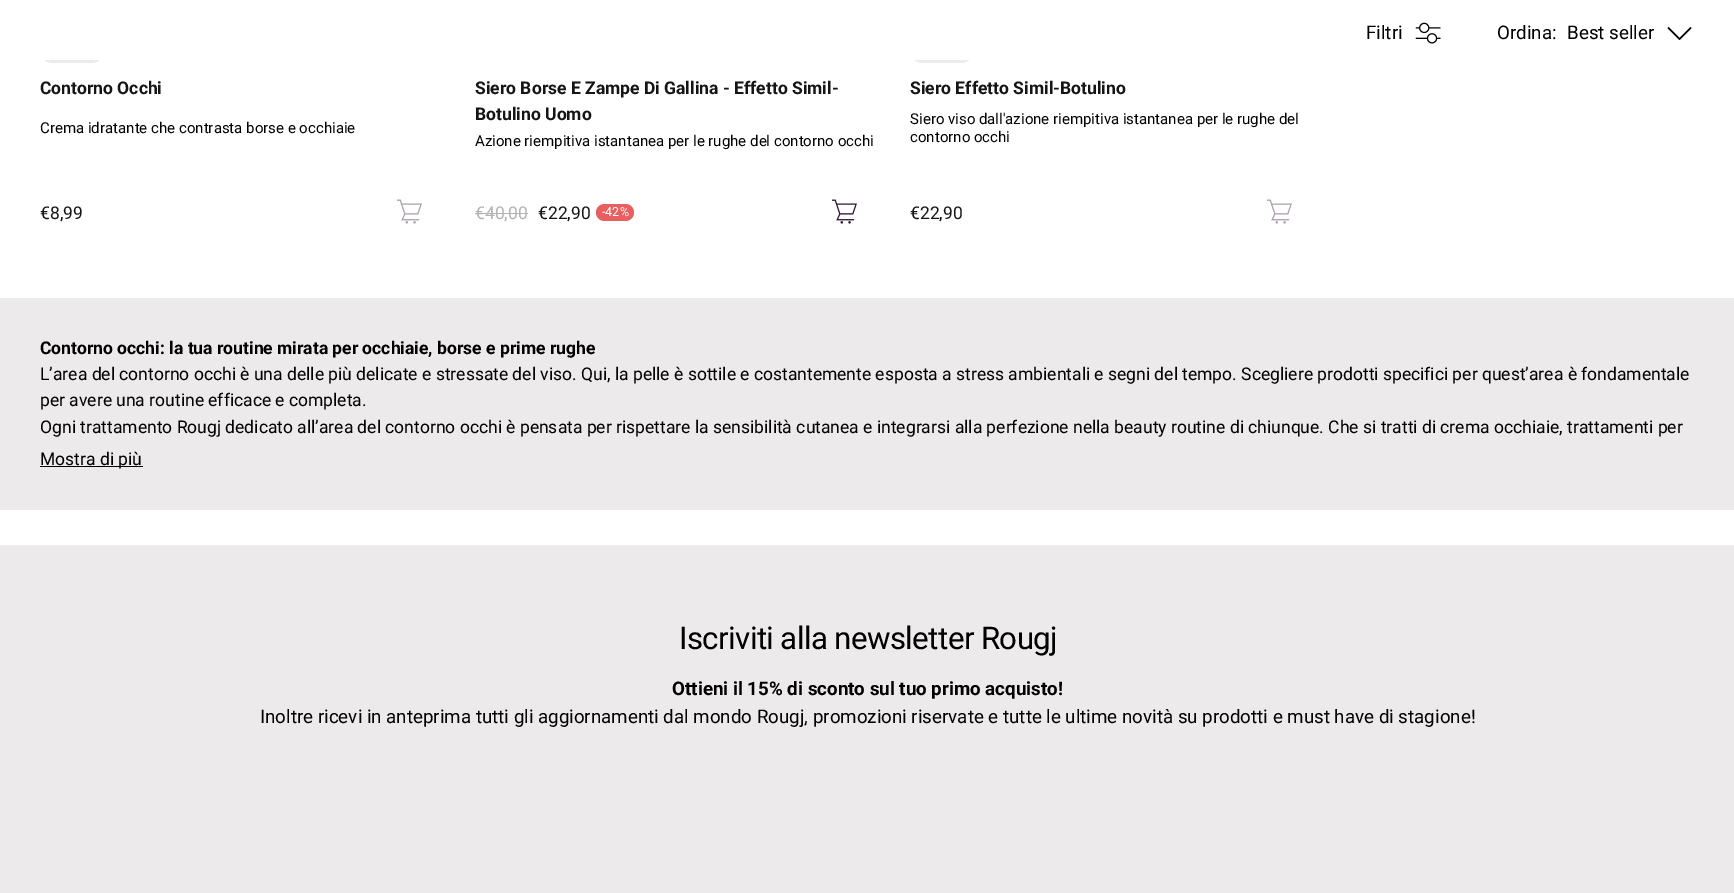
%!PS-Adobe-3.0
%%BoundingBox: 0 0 1734 893
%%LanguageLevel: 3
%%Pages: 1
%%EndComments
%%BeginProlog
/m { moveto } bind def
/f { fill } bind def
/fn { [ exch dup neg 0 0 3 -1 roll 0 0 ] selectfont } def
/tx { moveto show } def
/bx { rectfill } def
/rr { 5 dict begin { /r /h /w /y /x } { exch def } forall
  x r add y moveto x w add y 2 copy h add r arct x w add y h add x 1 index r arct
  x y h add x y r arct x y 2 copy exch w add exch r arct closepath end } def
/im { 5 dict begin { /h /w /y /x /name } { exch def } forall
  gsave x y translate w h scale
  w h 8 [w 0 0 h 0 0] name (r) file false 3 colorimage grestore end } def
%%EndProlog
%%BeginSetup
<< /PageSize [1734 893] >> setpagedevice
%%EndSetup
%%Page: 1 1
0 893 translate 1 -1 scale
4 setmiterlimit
1 setgray
0 0 1734 893 bx
0.925 0.918 0.918 setrgbcolor
40 36 64 27 13 rr f
910 36 64 27 13 rr f
1 setgray
40 36 934 24 bx
/Roboto-Regular 18.75 fn
0 setgray
(Filtri) 1366 39 tx
(image0.raw) 1415 22 26 22 im
(Ordina:) 1497 39 tx
(Best seller) 1567 39 tx
(image1.raw) 1667 27 25 13 im
/Roboto-Bold 17.5 fn
0.082 setgray
(Contorno Occhi) 40 94 tx
/Roboto-Regular 15 fn
0 setgray
(Crema idratante che contrasta borse e occhiaie) 40 133 tx
/Roboto-Regular 17.5 fn
0.082 setgray
(€8,99) 40 219 tx
(image2.raw) 397 199 25 25 im
/Roboto-Bold 17.5 fn
(Siero Borse E Zampe Di Gallina - Effetto Simil-) 475 94 tx
(Botulino Uomo) 475 120 tx
/Roboto-Regular 15 fn
0 setgray
(Azione riempitiva istantanea per le rughe del contorno occhi) 475 146 tx
/Roboto-Regular 17.5 fn
0.702 setgray
(€40,00) 475 219 tx
475 213 53 1 bx
0.082 setgray
(€22,90) 538 219 tx
0.914 0.369 0.369 setrgbcolor
596 204 38 17 8.5 rr f
/Roboto-Regular 12.5 fn
1 setgray
(-42%) 602 216 tx
(image3.raw) 832 199 25 25 im
/Roboto-Bold 17.5 fn
0.082 setgray
(Siero Effetto Simil-Botulino) 910 94 tx
/Roboto-Regular 15 fn
0 setgray
(Siero viso dall'azione riempitiva istantanea per le rughe del) 910 124 tx
(contorno occhi) 910 142 tx
/Roboto-Regular 17.5 fn
0.082 setgray
(€22,90) 910 219 tx
(image2.raw) 1267 199 25 25 im
0.925 0.918 0.918 setrgbcolor
0 298 1734 212 bx
/Roboto-Bold 17.5 fn
0 setgray
(Contorno occhi: la tua routine mirata per occhiaie, borse e prime rughe) 40 354 tx
/Roboto-Regular 17.5 fn
(L’area del contorno occhi è una delle più delicate e stressate del viso. Qui, la pelle è sottile e costantemente esposta a stress ambientali e segni del tempo. Scegliere prodotti specifici per quest’area è fondamentale) 40 380 tx
(per avere una routine efficace e completa.) 40 406 tx
(Ogni trattamento Rougj dedicato all’area del contorno occhi è pensata per rispettare la sensibilità cutanea e integrarsi alla perfezione nella beauty routine di chiunque. Che si tratti di crema occhiaie, trattamenti per) 40 433 tx
40 466 103 1 bx
(Mostra di più) 40 465 tx
0.925 0.918 0.918 setrgbcolor
0 545 1734 348 bx
/Roboto-Regular 31.25 fn
0 setgray
679 649 m -0.6 0 (Iscriviti alla newsletter Rougj) ashow
/Roboto-Bold 18.75 fn
(Ottieni il 15% di sconto sul tuo primo acquisto!) 672 695 tx
/Roboto-Regular 18.75 fn
(Inoltre ricevi in anteprima tutti gli aggiornamenti dal mondo Rougj, promozioni riservate e tutte le ultime novità su prodotti e must have di stagione!) 260 723 tx
showpage
%%EOF
